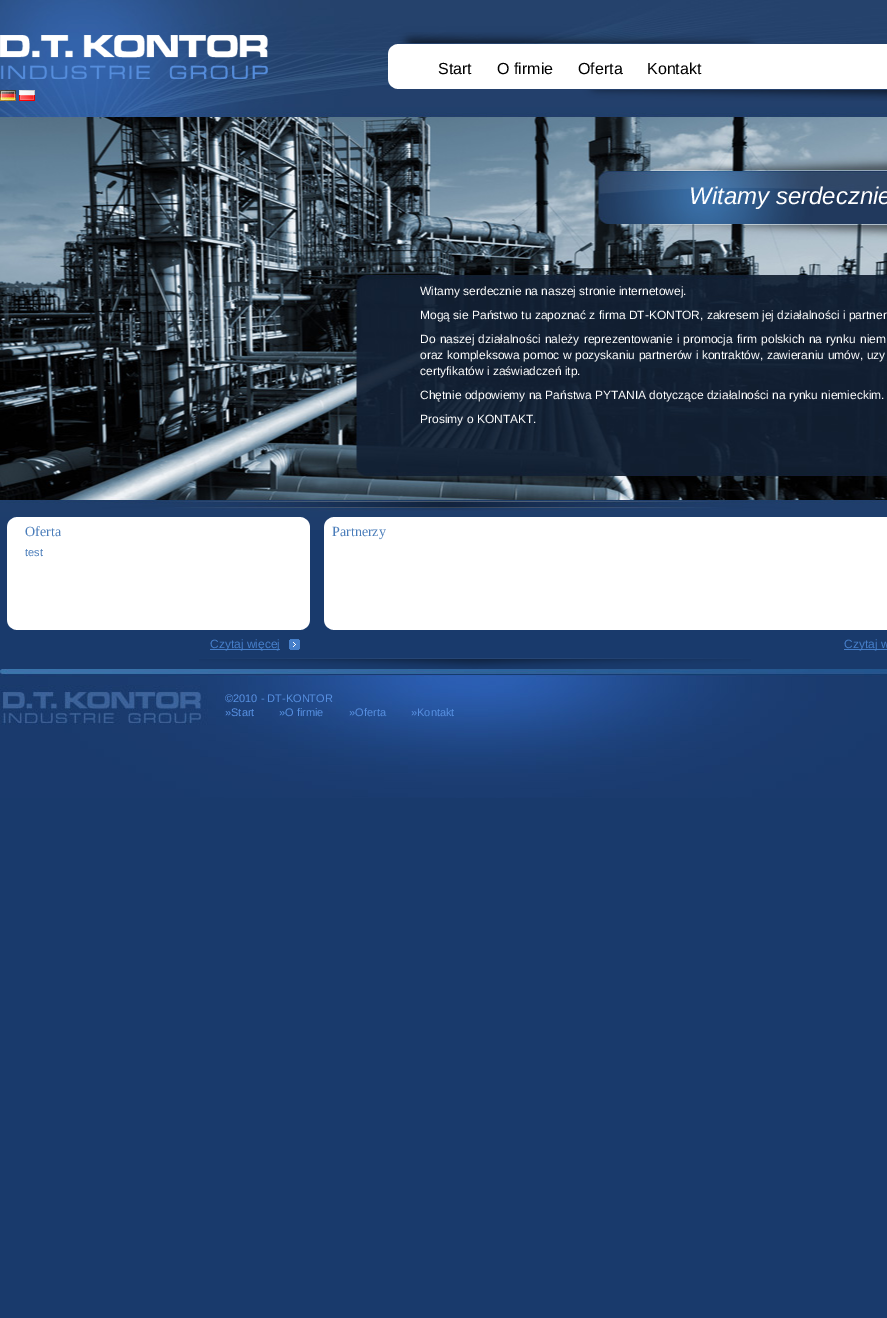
%!PS-Adobe-3.0
%%BoundingBox: 0 0 887 1318
%%LanguageLevel: 3
%%Pages: 1
%%EndComments
%%BeginProlog
/m { moveto } bind def
/fn { [ exch dup neg 0 0 3 -1 roll 0 0 ] selectfont } def
/tx { moveto show } def
/bx { rectfill } def
/im { 5 dict begin { /h /w /y /x /name } { exch def } forall
  gsave x y translate w h scale
  w h 8 [w 0 0 h 0 0] name (r) file false 3 colorimage grestore end } def
%%EndProlog
%%BeginSetup
<< /PageSize [887 1318] >> setpagedevice
%%EndSetup
%%Page: 1 1
0 1318 translate 1 -1 scale
4 setmiterlimit
0.098 0.227 0.424 setrgbcolor
0 0 887 1318 bx
(image0.raw) 0 511 887 19 im
(image1.raw) 0 0 887 511 im
(image2.raw) 0 35 268 44 im
(image3.raw) 388 32 499 69 im
/LiberationSans-Regular 16 fn
0 setgray
(Start) 438 74 tx
(O firmie) 497 74 tx
(Oferta) 578 74 tx
(Kontakt) 647 74 tx
(image4.raw) 0 90 16 11 im
(image5.raw) 19 90 16 11 im
/LiberationSans-Italic 24 fn
1 setgray
(Witamy serdecznie) 689 204 tx
/LiberationSans-Regular 12 fn
(Witamy serdecznie na naszej stronie internetowej.) 420 295 tx
(Mogą sie Państwo tu zapoznać z firma DT-KONTOR, zakresem jej działalności i partner) 420 319 tx
420 343 m 0.9 0 32 (Do naszej działalności należy reprezentowanie i promocja firm polskich na rynku niem) widthshow
420 359 m 0.25 0 32 (oraz kompleksowa pomoc w pozyskaniu partnerów i kontraktów, zawieraniu umów, uzy) widthshow
(certyfikatów i zaświadczeń itp.) 420 375 tx
(Chętnie odpowiemy na Państwa PYTANIA dotyczące działalności na rynku niemieckim.) 420 399 tx
(Prosimy o KONTAKT.) 420 423 tx
(image6.raw) 199 658 552 11 im
(image7.raw) 7 517 303 113 im
/LiberationSerif-Regular 14 fn
0.29 0.49 0.729 setrgbcolor
(Oferta) 25 536 tx
/LiberationSans-Regular 11 fn
(test) 25 556 tx
0.275 0.498 0.792 setrgbcolor
210 649 70 1 bx
/LiberationSans-Regular 12 fn
(Czytaj więcej) 210 648 tx
(image8.raw) 289 639 11 11 im
(image9.raw) 324 517 563 113 im
/LiberationSerif-Regular 14 fn
0.29 0.49 0.729 setrgbcolor
(Partnerzy) 332 536 tx
0.275 0.498 0.792 setrgbcolor
844 649 43 1 bx
/LiberationSans-Regular 12 fn
(Czytaj w) 844 648 tx
(image10.raw) 0 669 887 129 im
/LiberationSans-Regular 11 fn
0.341 0.565 0.882 setrgbcolor
(©2010 - DT-KONTOR) 225 702 tx
(»Start) 225 716 tx
(»O firmie) 279 716 tx
(»Oferta) 349 716 tx
(»Kontakt) 411 716 tx
showpage
%%EOF
